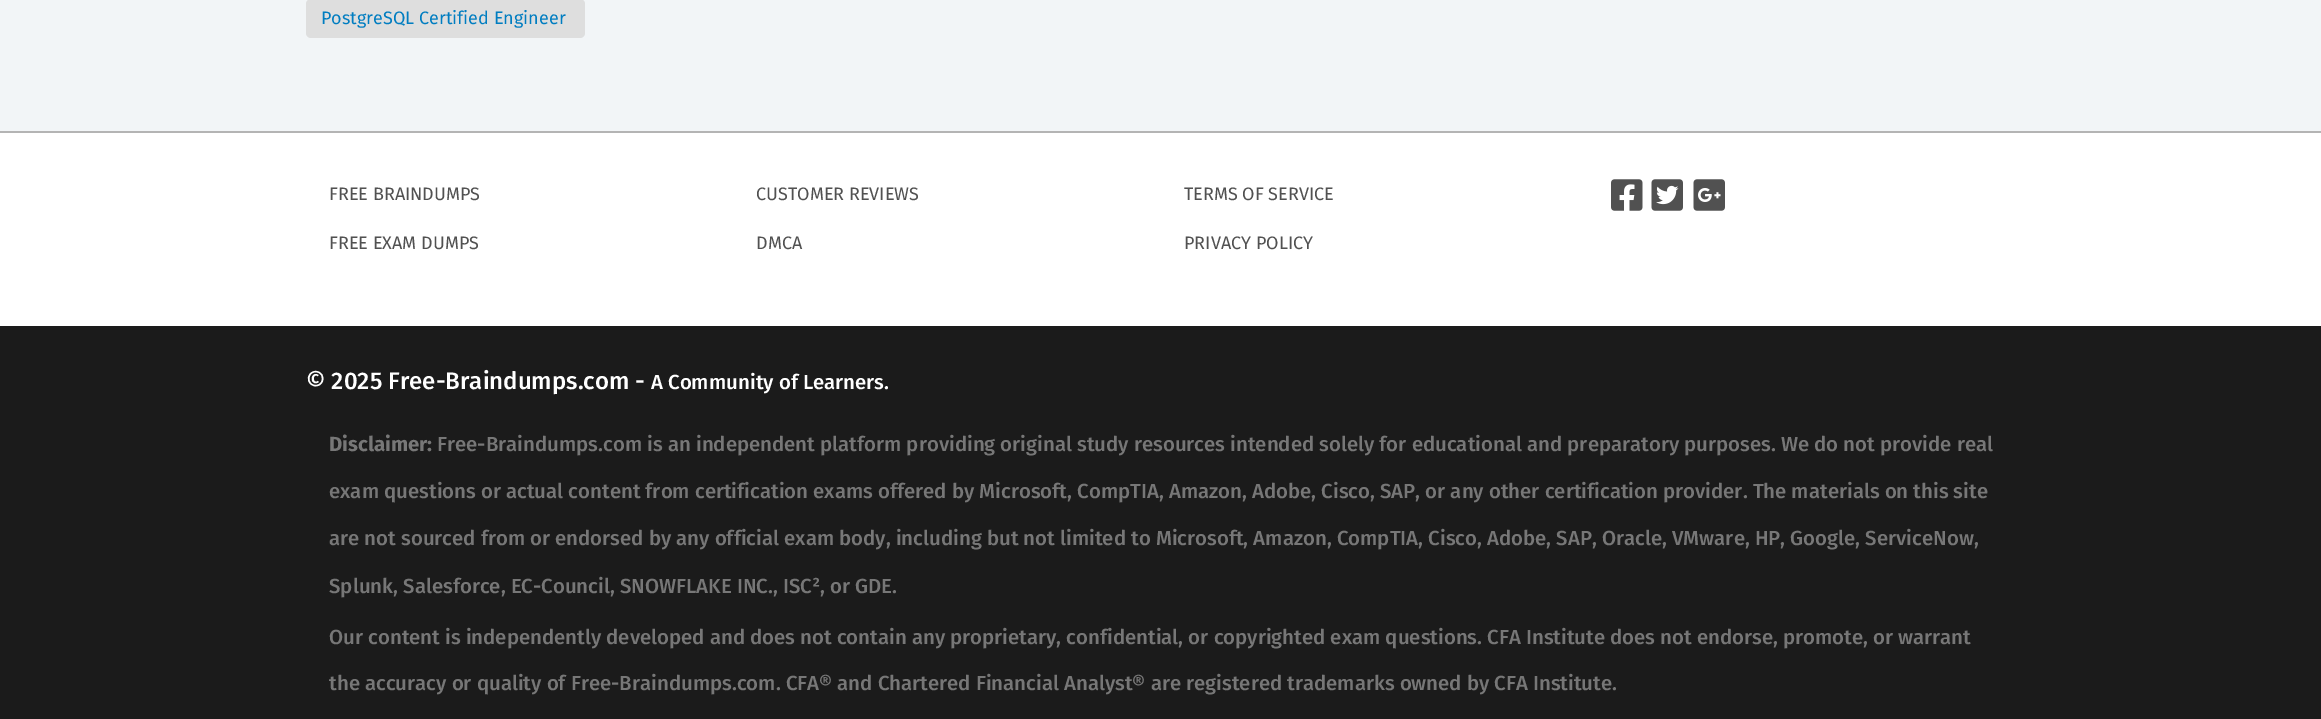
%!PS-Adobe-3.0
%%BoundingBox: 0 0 2321 719
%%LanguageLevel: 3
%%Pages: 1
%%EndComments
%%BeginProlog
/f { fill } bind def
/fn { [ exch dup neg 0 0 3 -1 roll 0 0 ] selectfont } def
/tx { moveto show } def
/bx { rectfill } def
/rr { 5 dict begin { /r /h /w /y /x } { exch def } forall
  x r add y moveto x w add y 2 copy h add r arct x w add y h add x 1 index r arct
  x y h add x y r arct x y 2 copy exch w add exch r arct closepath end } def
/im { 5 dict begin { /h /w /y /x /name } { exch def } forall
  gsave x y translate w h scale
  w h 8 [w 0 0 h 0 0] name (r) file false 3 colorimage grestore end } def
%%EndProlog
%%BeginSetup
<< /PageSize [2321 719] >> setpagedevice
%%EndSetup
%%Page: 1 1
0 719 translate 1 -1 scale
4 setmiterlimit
0.949 0.961 0.969 setrgbcolor
0 0 2321 719 bx
0.871 setgray
306 -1 279 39 5 rr f
/FiraSans-Regular 18 fn
0 0.49 0.757 setrgbcolor
(PostgreSQL Certified Engineer) 321 24 tx
1 setgray
0 133 2321 193 bx
0.706 setgray
0 131 2321 2 bx
0.318 setgray
(FREE BRAINDUMPS) 329 200 tx
(FREE EXAM DUMPS) 329 249 tx
(CUSTOMER REVIEWS) 756 200 tx
(DMCA) 756 249 tx
(TERMS OF SERVICE) 1184 200 tx
(PRIVACY POLICY) 1184 249 tx
(image0.raw) 1611 179 32 32 im
(image1.raw) 1651 179 32 32 im
(image2.raw) 1693 179 32 32 im
0.106 setgray
0 326 2321 393 bx
/FiraSans-Medium 24 fn
1 setgray
(© 2025 Free-Braindumps.com -) 306 389 tx
/FiraSans-Medium 20.4 fn
(A Community of Learners.) 651 389 tx
/FiraSans-Bold 20.4 fn
0.467 setgray
(Disclaimer:) 329 451 tx
/FiraSans-Medium 20.4 fn
(Free-Braindumps.com is an independent platform providing original study resources intended solely for educational and preparatory purposes. We do not provide real) 437 451 tx
(exam questions or actual content from certification exams offered by Microsoft, CompTIA, Amazon, Adobe, Cisco, SAP, or any other certification provider. The materials on this site) 329 498 tx
(are not sourced from or endorsed by any official exam body, including but not limited to Microsoft, Amazon, CompTIA, Cisco, Adobe, SAP, Oracle, VMware, HP, Google, ServiceNow,) 329 545 tx
(Splunk, Salesforce, EC-Council, SNOWFLAKE INC., ISC², or GDE.) 329 593 tx
(Our content is independently developed and does not contain any proprietary, confidential, or copyrighted exam questions. CFA Institute does not endorse, promote, or warrant) 329 644 tx
(the accuracy or quality of Free-Braindumps.com. CFA® and Chartered Financial Analyst® are registered trademarks owned by CFA Institute.) 329 690 tx
showpage
%%EOF
